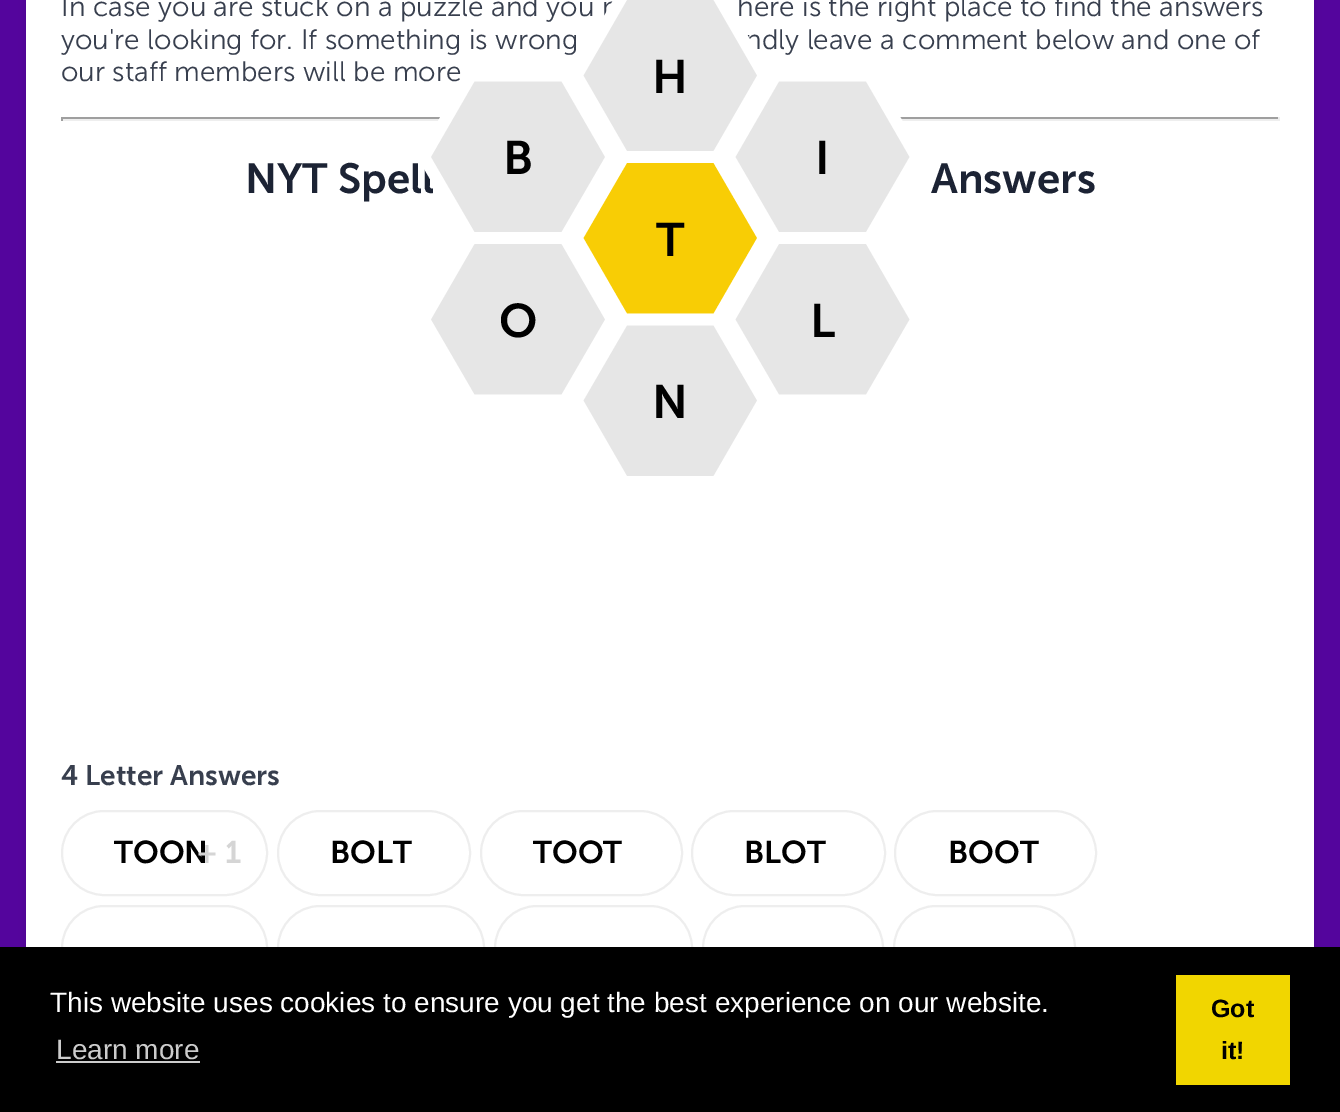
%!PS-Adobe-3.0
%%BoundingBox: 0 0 1340 1112
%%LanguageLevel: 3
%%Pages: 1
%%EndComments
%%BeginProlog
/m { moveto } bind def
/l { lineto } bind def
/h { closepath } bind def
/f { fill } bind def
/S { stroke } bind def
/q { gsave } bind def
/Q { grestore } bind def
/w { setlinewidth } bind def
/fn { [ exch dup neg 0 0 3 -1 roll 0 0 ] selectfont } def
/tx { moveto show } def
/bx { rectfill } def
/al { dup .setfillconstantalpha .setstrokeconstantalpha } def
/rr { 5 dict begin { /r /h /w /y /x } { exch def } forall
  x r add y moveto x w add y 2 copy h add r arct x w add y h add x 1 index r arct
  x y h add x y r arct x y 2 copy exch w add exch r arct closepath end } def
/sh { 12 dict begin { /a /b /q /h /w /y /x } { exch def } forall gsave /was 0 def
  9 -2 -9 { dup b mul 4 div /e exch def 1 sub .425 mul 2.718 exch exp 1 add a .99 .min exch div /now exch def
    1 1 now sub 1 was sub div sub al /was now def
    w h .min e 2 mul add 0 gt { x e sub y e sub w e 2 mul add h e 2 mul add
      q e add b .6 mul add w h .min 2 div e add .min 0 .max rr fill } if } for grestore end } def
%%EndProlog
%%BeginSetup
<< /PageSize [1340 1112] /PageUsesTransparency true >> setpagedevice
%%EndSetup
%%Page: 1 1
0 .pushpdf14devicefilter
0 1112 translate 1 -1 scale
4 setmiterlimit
0.329 0.02 0.616 setrgbcolor
0 0 1340 1112 bx
0 setgray
26 -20 1288 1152 9 3.5 0.1 sh
1 setgray
26 0 1288 947 bx
/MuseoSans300-Light 28 fn
0.22 0.247 0.306 setrgbcolor
(In case you are stuck on a puzzle and you n) 61 16 tx
(here is the right place to find the answers) 737 16 tx
(you're looking for. If something is wrong) 61 49 tx
(ndly leave a comment below and one of) 745 49 tx
(our staff members will be more) 61 81 tx
0.973 0.804 0.02 setrgbcolor
576 238 m 623 157 l 717 157 l 764 238 l 717 319 l 623 319 l h f
1 setgray
11.7 w
576.5 238 m 623.5 157 l 717 157 l 764 238 l 717 319.5 l 623.5 319.5 l h S
0.624 setgray
61 117 1218 2 bx
0.933 setgray
1278 117 2 4 bx
61 119 1218 2 bx
/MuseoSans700-SemiBold 42 fn
0.11 0.137 0.204 setrgbcolor
(NYT Spell) 245 193 tx
0.902 setgray
424 157 m 471 75 l 565 75 l 612 157 l 565 238 l 471 238 l h f
q
417 75 203 163 rectclip
1 setgray
424 157 m 471 75.5 l 565 75.5 l 612 157 l 565 238 l 471 238 l h S
Q
576 75 m 623 -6 l 717 -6 l 764 75 l 717 157 l 623 157 l h f
q
569 0 203 158 rectclip
1 setgray
576.5 75.5 m 623.5 -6 l 717 -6 l 764 75.5 l 717 157 l 623.5 157 l h S
Q
/MuseoSans700-SemiBold 47 fn
0 setgray
(H) 652 93 tx
(B) 503 174 tx
0.902 setgray
729 157 m 776 75 l 869 75 l 916 157 l 869 238 l 776 238 l h f
q
721 75 203 163 rectclip
1 setgray
728.5 157 m 775.5 75.5 l 869.5 75.5 l 916.5 157 l 869.5 238 l 775.5 238 l h S
Q
0 setgray
(I) 815 174 tx
(T) 656 256 tx
0.902 setgray
729 319 m 776 238 l 869 238 l 916 319 l 869 401 l 776 401 l h f
q
721 238 203 163 rectclip
1 setgray
728.5 319.5 m 775.5 238 l 869.5 238 l 916.5 319.5 l 869.5 400.5 l 775.5 400.5 l h S
Q
q
569 320 203 163 rectclip
576 401 m 623 319 l 717 319 l 764 401 l 717 482 l 623 482 l h f
1 setgray
576.5 400.5 m 623.5 319.5 l 717 319.5 l 764 400.5 l 717 482 l 623.5 482 l h S
Q
424 319 m 471 238 l 565 238 l 612 319 l 565 401 l 471 401 l h f
q
417 238 203 163 rectclip
1 setgray
424 319.5 m 471 238 l 565 238 l 612 319.5 l 565 400.5 l 471 400.5 l h S
Q
0 setgray
(O) 499 337 tx
(L) 810 337 tx
(N) 652 418 tx
0.624 setgray
61 117 2 4 bx
/MuseoSans700-SemiBold 42 fn
0.11 0.137 0.204 setrgbcolor
(Answers) 931 193 tx
/MuseoSans700-SemiBold 28 fn
0.22 0.247 0.306 setrgbcolor
(4 Letter Answers) 61 785 tx
0.933 setgray
2 w
62 811 205 84 42 rr S
/MuseoSans700-SemiBold 31.5 fn
0 setgray
(TOON) 114 863 tx
0.835 setgray
(+ 1) 197 863 tx
0.933 setgray
278 811 192 84 42 rr S
0 setgray
(BOLT) 330 863 tx
0.933 setgray
481 811 201 84 42 rr S
0 setgray
(TOOT) 533 863 tx
0.933 setgray
692 811 193 84 42 rr S
0 setgray
(BLOT) 744 863 tx
0.933 setgray
895 811 201 84 42 rr S
0 setgray
(BOOT) 948 863 tx
0.933 setgray
62 906 205 84 42 rr S
278 906 206 84 42 rr S
495 906 197 84 42 rr S
703 906 180 84 42 rr S
894 906 181 84 42 rr S
0 setgray
0 947 1340 165 bx
/LiberationSans-Regular 28 fn
1 setgray
(This website uses cookies to ensure you get the best experience on our website.) 50 1012 tx
0.8 setgray
(Learn more) 56 1059 tx
56 1061 144 2 bx
0.945 0.839 0 setrgbcolor
1176 975 114 110 bx
/LiberationSans-Bold 25 fn
0 setgray
(Got) 1211 1017 tx
(it!) 1221 1059 tx
.poppdf14devicefilter showpage
%%EOF
